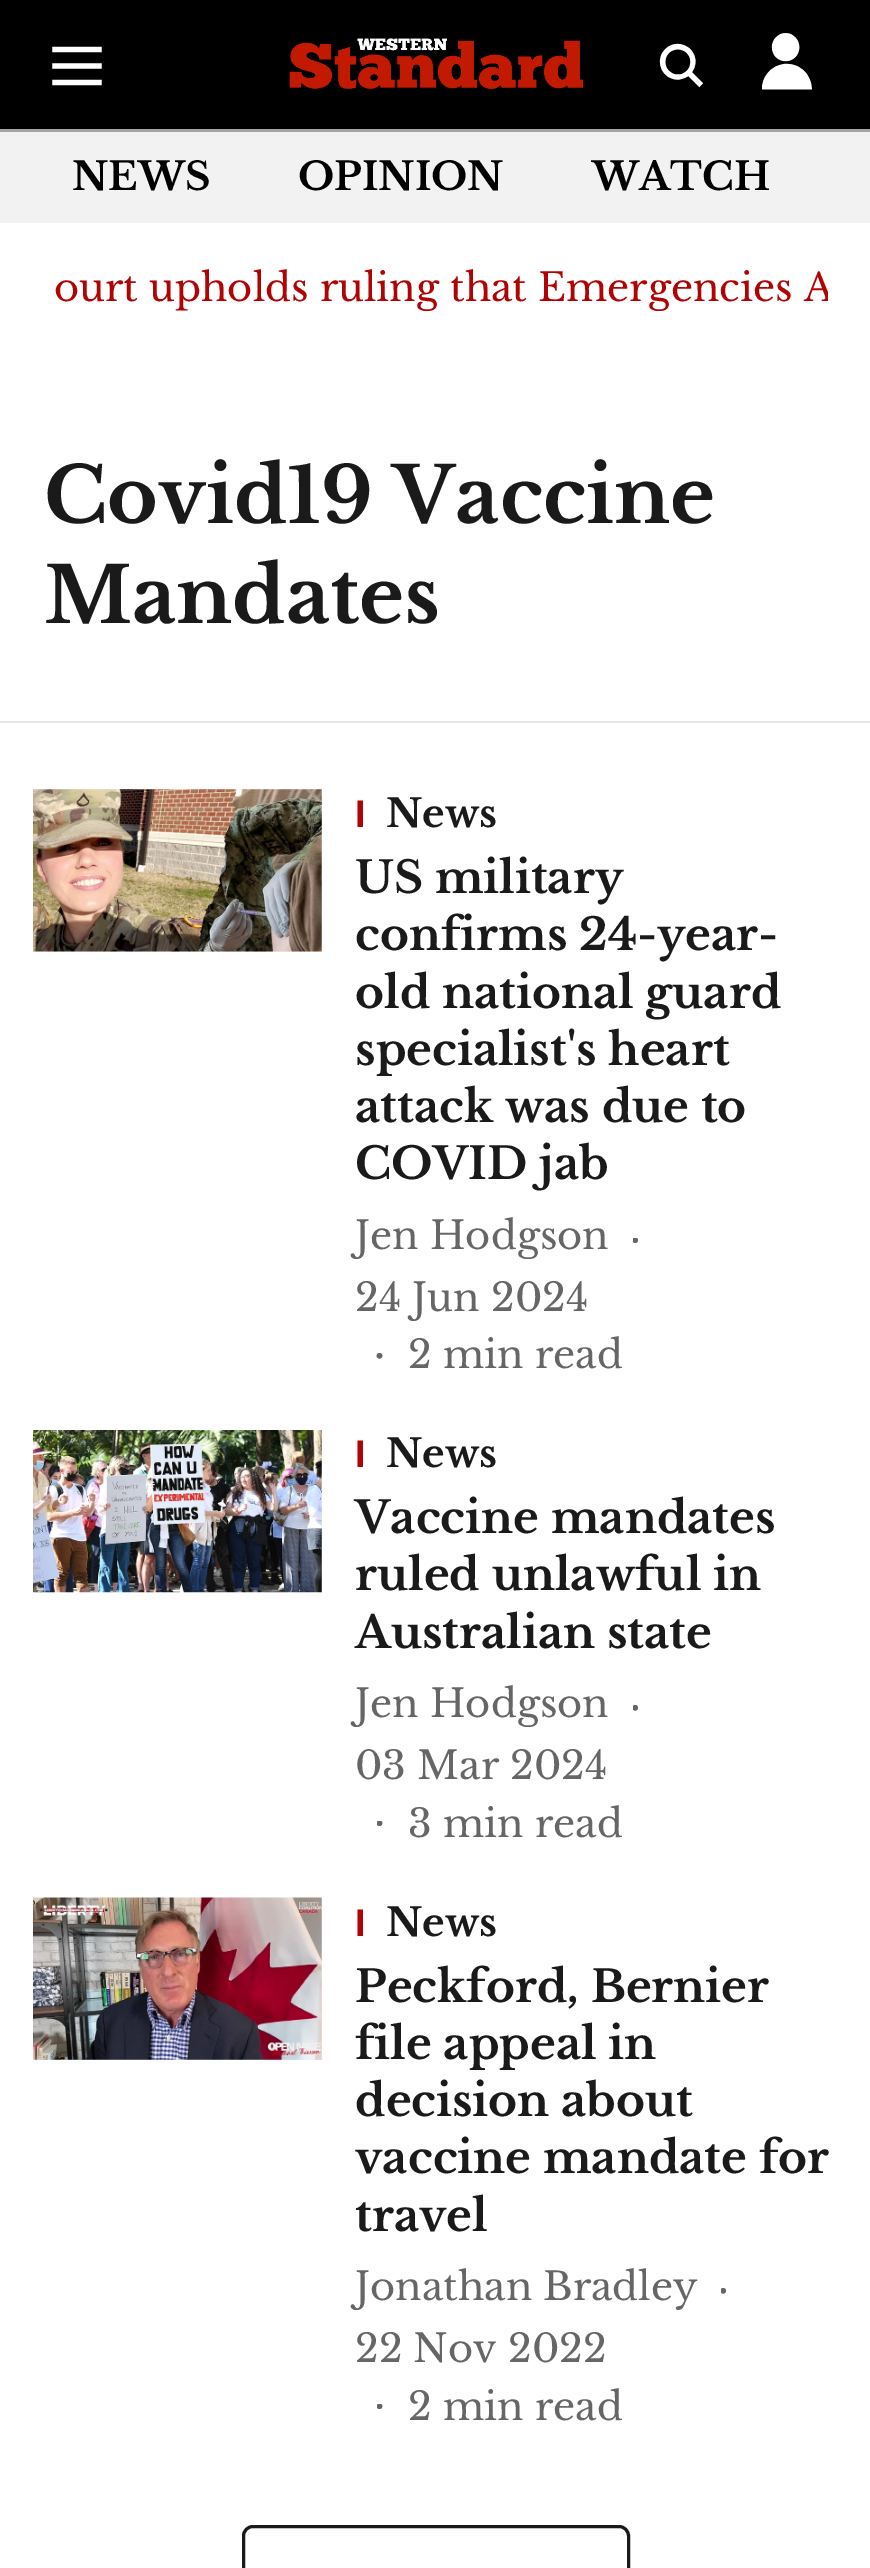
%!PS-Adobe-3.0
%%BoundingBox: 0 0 870 2568
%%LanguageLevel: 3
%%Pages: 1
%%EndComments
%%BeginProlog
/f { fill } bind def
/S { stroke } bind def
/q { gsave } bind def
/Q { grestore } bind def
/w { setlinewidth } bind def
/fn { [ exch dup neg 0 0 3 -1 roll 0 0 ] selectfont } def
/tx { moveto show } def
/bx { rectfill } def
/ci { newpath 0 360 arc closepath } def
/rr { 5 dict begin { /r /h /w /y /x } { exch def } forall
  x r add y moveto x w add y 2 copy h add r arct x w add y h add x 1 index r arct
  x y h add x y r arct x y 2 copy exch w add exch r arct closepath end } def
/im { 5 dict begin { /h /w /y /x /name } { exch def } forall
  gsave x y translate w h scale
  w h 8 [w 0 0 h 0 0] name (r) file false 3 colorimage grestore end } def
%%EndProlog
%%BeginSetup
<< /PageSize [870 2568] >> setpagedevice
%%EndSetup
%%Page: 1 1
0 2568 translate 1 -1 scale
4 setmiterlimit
1 setgray
0 0 870 2568 bx
0 setgray
0 0 870 129 bx
0.643 setgray
0 129 870 3 bx
(image0.raw) 52 46 50 40 im
(image1.raw) 289 38 295 51 im
(image2.raw) 659 43 45 45 im
(image3.raw) 762 33 50 57 im
0.949 setgray
0 132 870 91 bx
/LibreBaskerville-Bold 38.5 fn
0 setgray
(NEWS) 72 190 tx
(OPINION) 298 190 tx
(WATCH) 592 190 tx
q
44 261 784 58 rectclip
/LibreBaskerville-Regular 38.5 fn
0.694 0.012 0.012 setrgbcolor
(ourt upholds ruling that Emergencies A) 54 301 tx
Q
0.902 setgray
0 721 870 2 bx
/LibreBaskerville-Bold 77 fn
0.102 setgray
(Covid19 Vaccine) 44 523 tx
(Mandates) 44 623 tx
0.941 setgray
33 789 289 163 bx
(image4.raw) 33 789 289 163 im
q
355 789 8 50 rectclip
/LiberationSans-Bold 38.5 fn
0.694 0.012 0.012 setrgbcolor
(I) 355 827 tx
Q
/LibreBaskerville-Bold 38.5 fn
0.102 setgray
(News) 386 827 tx
/LibreBaskerville-Bold 44 fn
(US military) 355 893 tx
(confirms 24-year-) 355 950 tx
(old national guard) 355 1008 tx
(specialist's heart) 355 1065 tx
(attack was due to) 355 1122 tx
(COVID jab) 355 1179 tx
/LibreBaskerville-Regular 38.5 fn
0.4 setgray
(Jen Hodgson) 355 1249 tx
q
633 1238 8 8 rectclip
635.2 1240.2 2.8 ci f
Q
(24 Jun 2024) 355 1311 tx
379.5 1355.8 2.8 ci f
(2 min read) 408 1368 tx
(image5.raw) 33 1430 289 163 im
q
355 1430 8 50 rectclip
/LiberationSans-Bold 38.5 fn
0.694 0.012 0.012 setrgbcolor
(I) 355 1467 tx
Q
/LibreBaskerville-Bold 38.5 fn
0.102 setgray
(News) 386 1467 tx
/LibreBaskerville-Bold 44 fn
(Vaccine mandates) 355 1533 tx
(ruled unlawful in) 355 1590 tx
(Australian state) 355 1648 tx
/LibreBaskerville-Regular 38.5 fn
0.4 setgray
(Jen Hodgson) 355 1717 tx
q
633 1705 8 8 rectclip
635.2 1707.8 2.8 ci f
Q
(03 Mar 2024) 355 1779 tx
q
377 1821 8 8 rectclip
379.5 1823.2 2.8 ci f
Q
(3 min read) 408 1837 tx
0.941 setgray
33 1898 289 162 bx
(image6.raw) 33 1897 289 163 im
q
355 1898 8 49 rectclip
/LiberationSans-Bold 38.5 fn
0.694 0.012 0.012 setrgbcolor
(I) 355 1936 tx
Q
/LibreBaskerville-Bold 38.5 fn
0.102 setgray
(News) 386 1936 tx
/LibreBaskerville-Bold 44 fn
(Peckford, Bernier) 355 2002 tx
(file appeal in) 355 2059 tx
(decision about) 355 2116 tx
(vaccine mandate for) 355 2173 tx
(travel) 355 2231 tx
/LibreBaskerville-Regular 38.5 fn
0.4 setgray
(Jonathan Bradley) 355 2300 tx
q
721 2288 8 8 rectclip
723.2 2290.8 2.8 ci f
Q
(22 Nov 2022) 355 2362 tx
q
377 2404 8 8 rectclip
379.5 2406.2 2.8 ci f
Q
(2 min read) 408 2420 tx
0.102 setgray
3 w
243.5 2526.5 385 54 9.5 rr S
showpage
%%EOF
